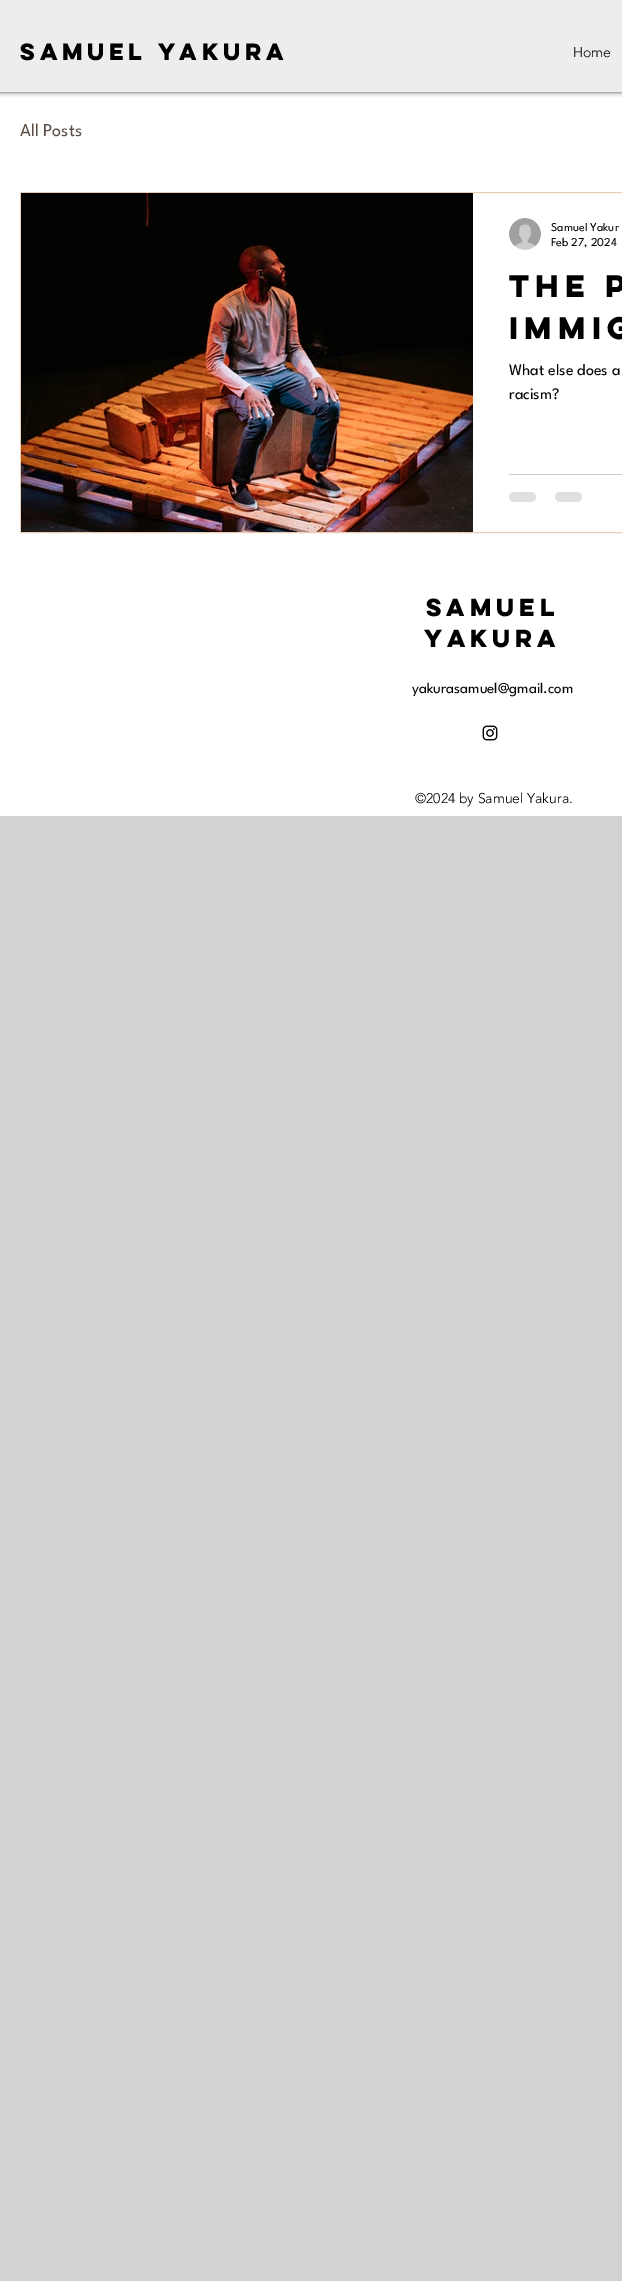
%!PS-Adobe-3.0
%%BoundingBox: 0 0 622 2281
%%LanguageLevel: 3
%%Pages: 1
%%EndComments
%%BeginProlog
/f { fill } bind def
/q { gsave } bind def
/Q { grestore } bind def
/fn { [ exch dup neg 0 0 3 -1 roll 0 0 ] selectfont } def
/tx { moveto show } def
/bx { rectfill } def
/al { dup .setfillconstantalpha .setstrokeconstantalpha } def
/rr { 5 dict begin { /r /h /w /y /x } { exch def } forall
  x r add y moveto x w add y 2 copy h add r arct x w add y h add x 1 index r arct
  x y h add x y r arct x y 2 copy exch w add exch r arct closepath end } def
/sh { 12 dict begin { /a /b /q /h /w /y /x } { exch def } forall gsave /was 0 def
  9 -2 -9 { dup b mul 4 div /e exch def 1 sub .425 mul 2.718 exch exp 1 add a .99 .min exch div /now exch def
    1 1 now sub 1 was sub div sub al /was now def
    w h .min e 2 mul add 0 gt { x e sub y e sub w e 2 mul add h e 2 mul add
      q e add b .6 mul add w h .min 2 div e add .min 0 .max rr fill } if } for grestore end } def
/im { 5 dict begin { /h /w /y /x /name } { exch def } forall
  gsave x y translate w h scale
  w h 8 [w 0 0 h 0 0] name (r) file false 3 colorimage grestore end } def
%%EndProlog
%%BeginSetup
<< /PageSize [622 2281] /PageUsesTransparency true >> setpagedevice
%%EndSetup
%%Page: 1 1
0 .pushpdf14devicefilter
0 2281 translate 1 -1 scale
4 setmiterlimit
0.824 setgray
0 0 622 2281 bx
1 setgray
0 92 622 724 bx
0 setgray
0 0 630 92 0 2.5 0.7 sh
0.929 setgray
0 0 622 92 bx
/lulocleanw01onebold-Bold 21 fn
0 setgray
(Samuel Yakura) 20 60 tx
/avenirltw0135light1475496-Light 14 fn
(Home) 573 57 tx
/LeagueSpartan-Regular 18 fn
0.357 0.302 0.263 setrgbcolor
(All Posts) 20 136 tx
0.91 0.808 0.702 setrgbcolor
20.5 192.5 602 340 rectstroke
(image0.raw) 21 193 452 339 im
(image1.raw) 509 218 32 32 im
q
551 223 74 11 rectclip
/LeagueSpartan-Regular 12 fn
0 setgray
(Samuel Yakur) 551 231 tx
Q
/LeagueSpartan-Regular 12 fn
0 setgray
(Feb 27, 2024) 551 246 tx
/lulocleanw01onebold-Bold 28 fn
(The P) 509 297 tx
(Immig) 509 339 tx
/LeagueSpartan-Regular 16 fn
(What else does a) 509 375 tx
(racism?) 509 399 tx
0.8 setgray
509 474 113 1 bx
0.878 setgray
509 492 27 10 5 rr f
555 492 27 10 5 rr f
/lulocleanw01onebold-Bold 22 fn
0 setgray
(Samuel) 426 616 tx
(Yakura) 424 647 tx
/LeagueSpartan-Regular 15 fn
(yakurasamuel@gmail.com) 412 693 tx
(image2.raw) 482 725 16 16 im
/avenirltw0135light1475496-Light 14 fn
(©2024 by Samuel Yakura.) 415 803 tx
.poppdf14devicefilter showpage
%%EOF
